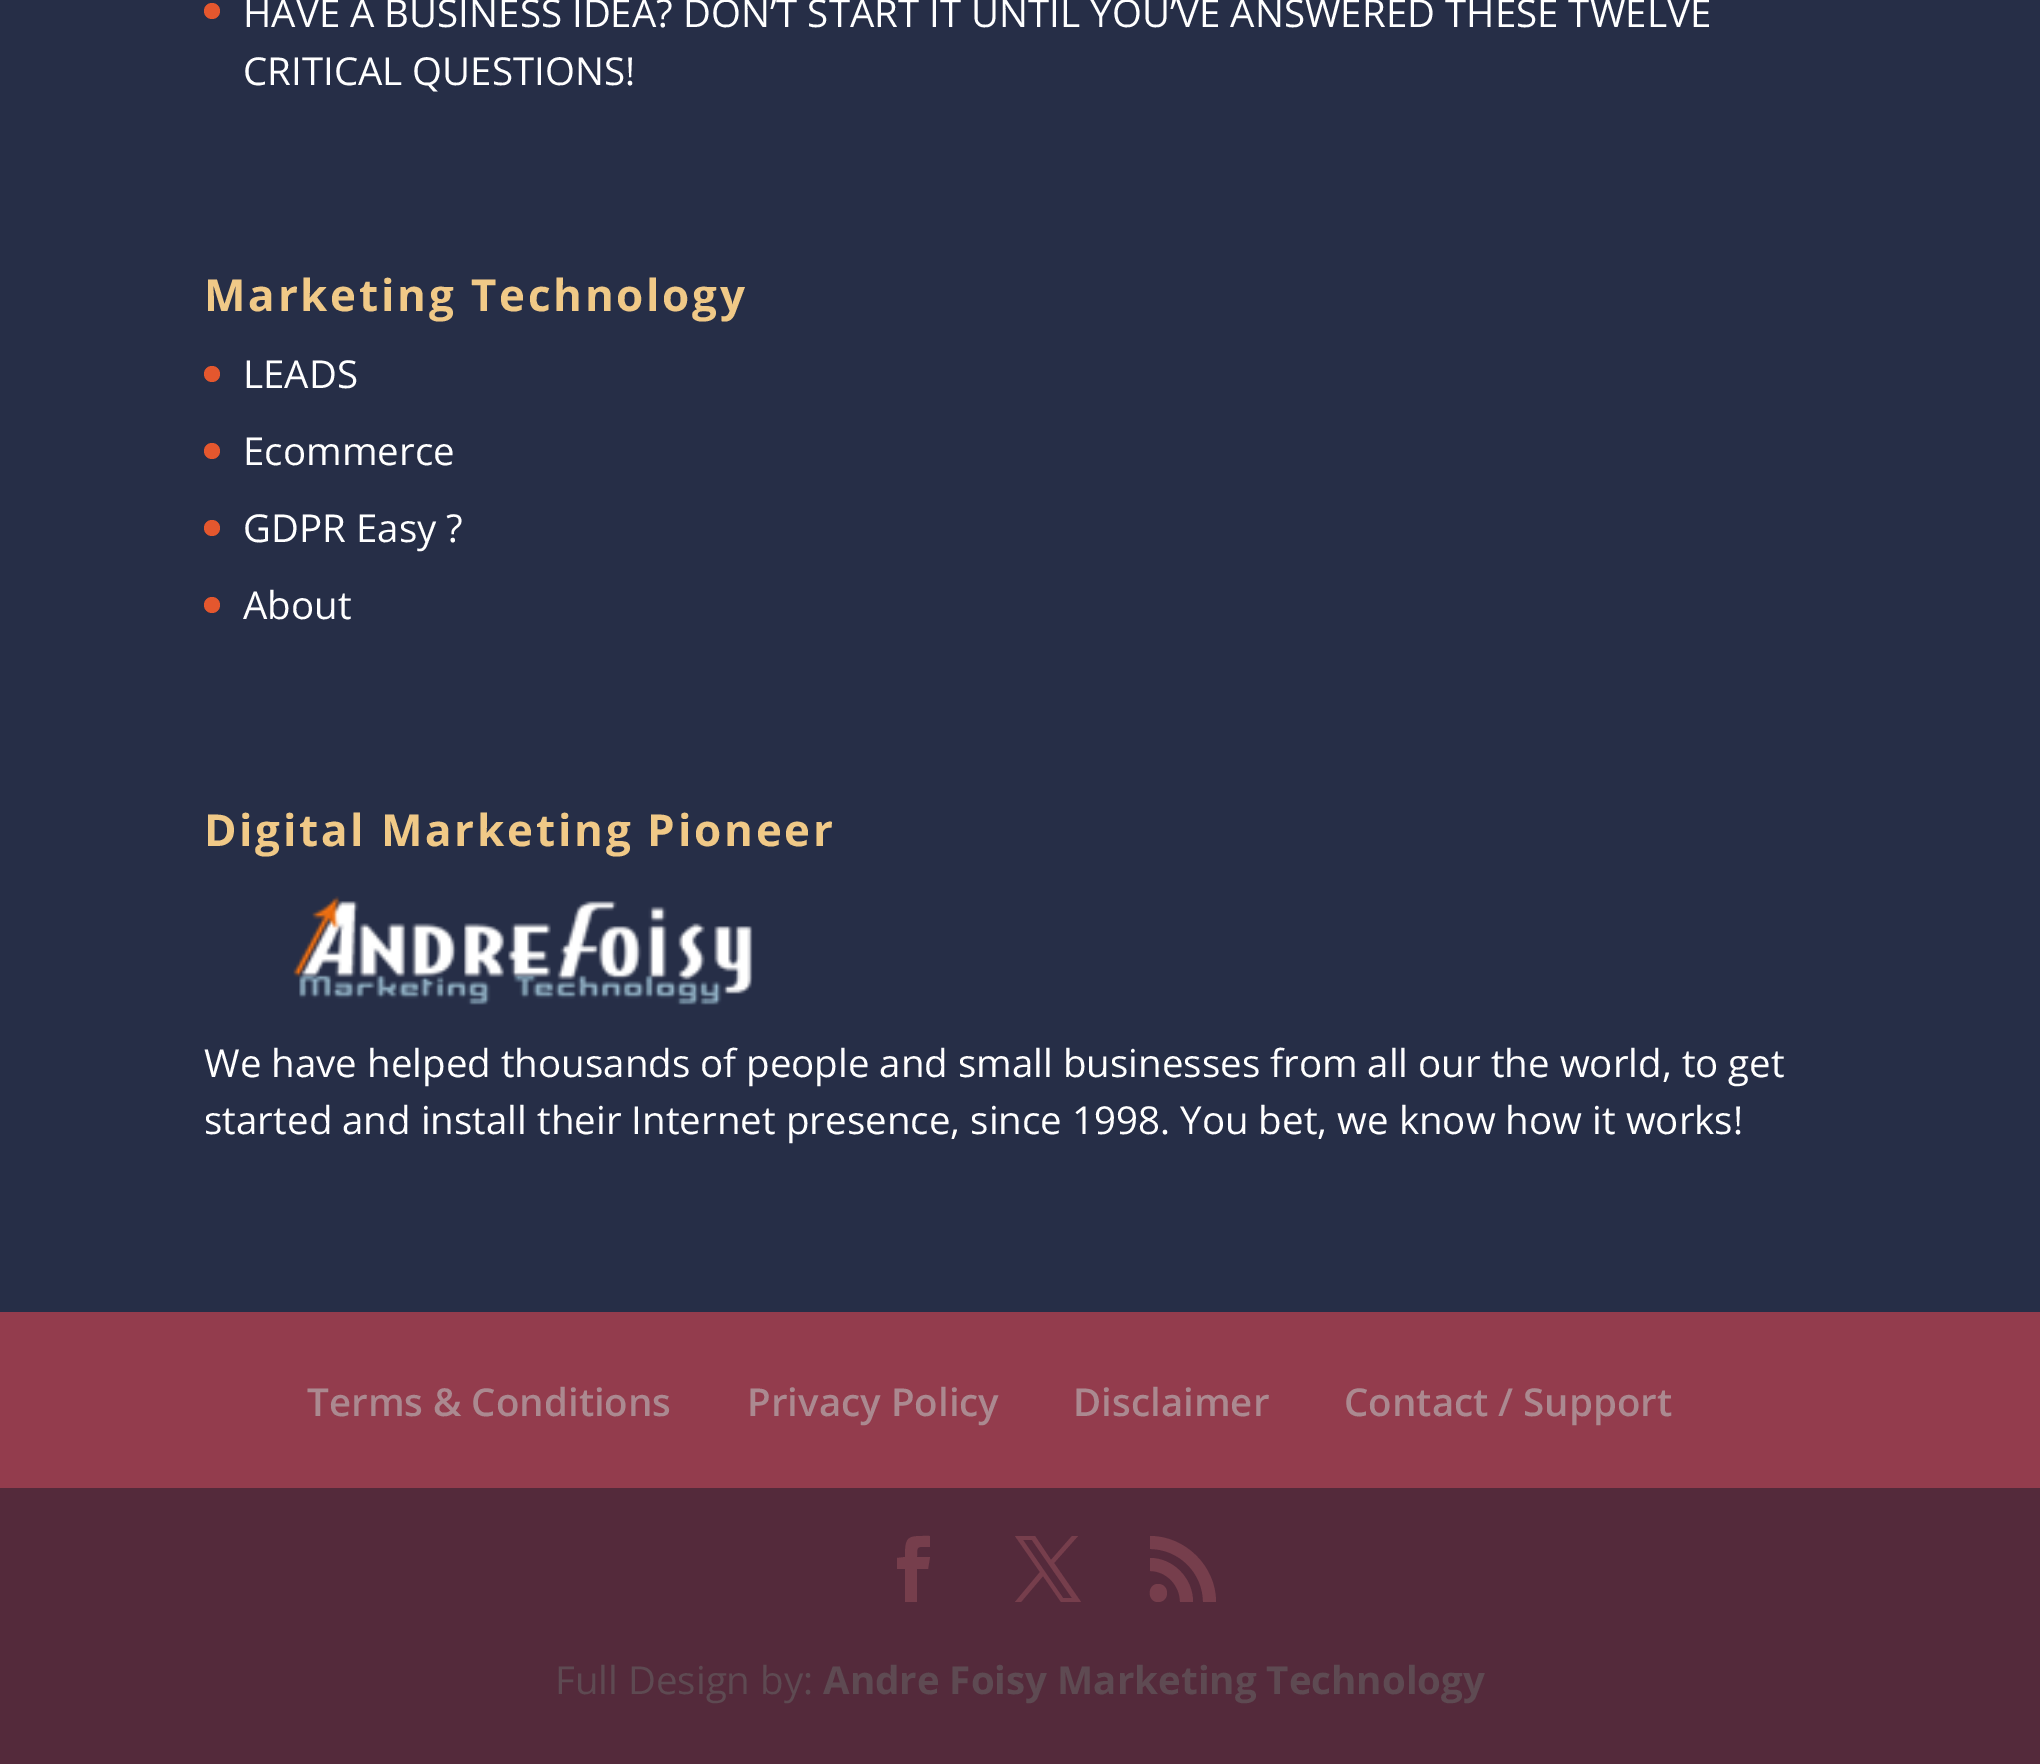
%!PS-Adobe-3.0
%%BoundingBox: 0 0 2040 1764
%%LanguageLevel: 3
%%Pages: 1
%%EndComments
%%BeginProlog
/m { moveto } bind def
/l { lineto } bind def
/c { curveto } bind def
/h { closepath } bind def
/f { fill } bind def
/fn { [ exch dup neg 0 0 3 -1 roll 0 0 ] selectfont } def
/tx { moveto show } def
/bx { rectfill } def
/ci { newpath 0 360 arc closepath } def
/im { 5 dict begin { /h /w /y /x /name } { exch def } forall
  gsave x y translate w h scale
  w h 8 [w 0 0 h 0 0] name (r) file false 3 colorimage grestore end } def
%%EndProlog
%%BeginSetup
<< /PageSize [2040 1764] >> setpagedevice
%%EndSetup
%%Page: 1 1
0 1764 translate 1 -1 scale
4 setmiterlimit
0.149 0.18 0.278 setrgbcolor
0 0 2040 1764 bx
0.894 0.341 0.18 setrgbcolor
212 11 8 ci f
/OpenSans-Regular 38.5 fn
1 setgray
(HAVE A BUSINESS IDEA? DON’T START IT UNTIL YOU’VE ANSWERED THESE TWELVE) 243 27 tx
(CRITICAL QUESTIONS!) 243 85 tx
/OpenSans-Bold 44 fn
0.941 0.788 0.529 setrgbcolor
204 311 m 2.75 0 (Marketing Technology) ashow
0.894 0.341 0.18 setrgbcolor
212 374 8 ci f
/OpenSans-Regular 38.5 fn
1 setgray
(LEADS) 243 388 tx
0.894 0.341 0.18 setrgbcolor
212 451 8 ci f
1 setgray
(Ecommerce) 243 465 tx
0.894 0.341 0.18 setrgbcolor
212 528 8 ci f
1 setgray
(GDPR Easy ?) 243 542 tx
0.894 0.341 0.18 setrgbcolor
212 605 8 ci f
1 setgray
(About) 243 619 tx
/OpenSans-Bold 44 fn
0.941 0.788 0.529 setrgbcolor
204 846 m 2.75 0 (Digital Marketing Pioneer) ashow
(image0.raw) 293 896 460 109 im
/OpenSans-Regular 38.5 fn
1 setgray
(We have helped thousands of people and small businesses from all our the world, to get) 204 1077 tx
(started and install their Internet presence, since 1998. You bet, we know how it works!) 204 1134 tx
0.576 0.235 0.302 setrgbcolor
0 1312 2040 176 bx
/OpenSans-SemiBold 38.5 fn
0.671 0.537 0.565 setrgbcolor
(Terms & Conditions) 307 1416 tx
(Privacy Policy) 747 1416 tx
(Disclaimer) 1073 1416 tx
(Contact / Support) 1344 1416 tx
0.329 0.165 0.231 setrgbcolor
0 1488 2040 276 bx
0.463 0.243 0.298 setrgbcolor
905 1602 m 917 1602 l 917 1569 l 928 1569 l 930 1557 l 917 1557 l 917 1545 917 1547 930 1547 c 930 1536 l 908 1536 905 1535 905 1557 c 897 1558 l 897 1569 l 905 1569 l h f
1015 1536 m 1040 1572 l 1015 1602 l 1021 1602 l 1043 1576 l 1061 1602 l 1081 1602 l 1054 1563 l 1078 1536 l 1072 1536 l 1051 1560 l 1035 1536 l h 1023 1540 m 1032 1540 l 1072 1598 l 1063 1598 l h f
1150 1536 m 1150 1549 l 1179 1549 1203 1573 1203 1602 c 1216 1602 l 1216 1566 1185 1536 1150 1536 c h 1180 1602 m 1193 1602 l 1193 1578 1173 1558 1150 1558 c 1150 1571 l 1166 1571 1180 1585 1180 1602 c h 1158 1602 m 1170 1602 1170 1584 1158 1584 c 1147 1584 1147 1602 1158 1602 c h f
/OpenSans-Regular 38.5 fn
0.369 0.29 0.322 setrgbcolor
(Full Design by:) 555 1694 tx
/OpenSans-Bold 38.5 fn
(Andre Foisy Marketing Technology) 823 1694 tx
showpage
%%EOF
